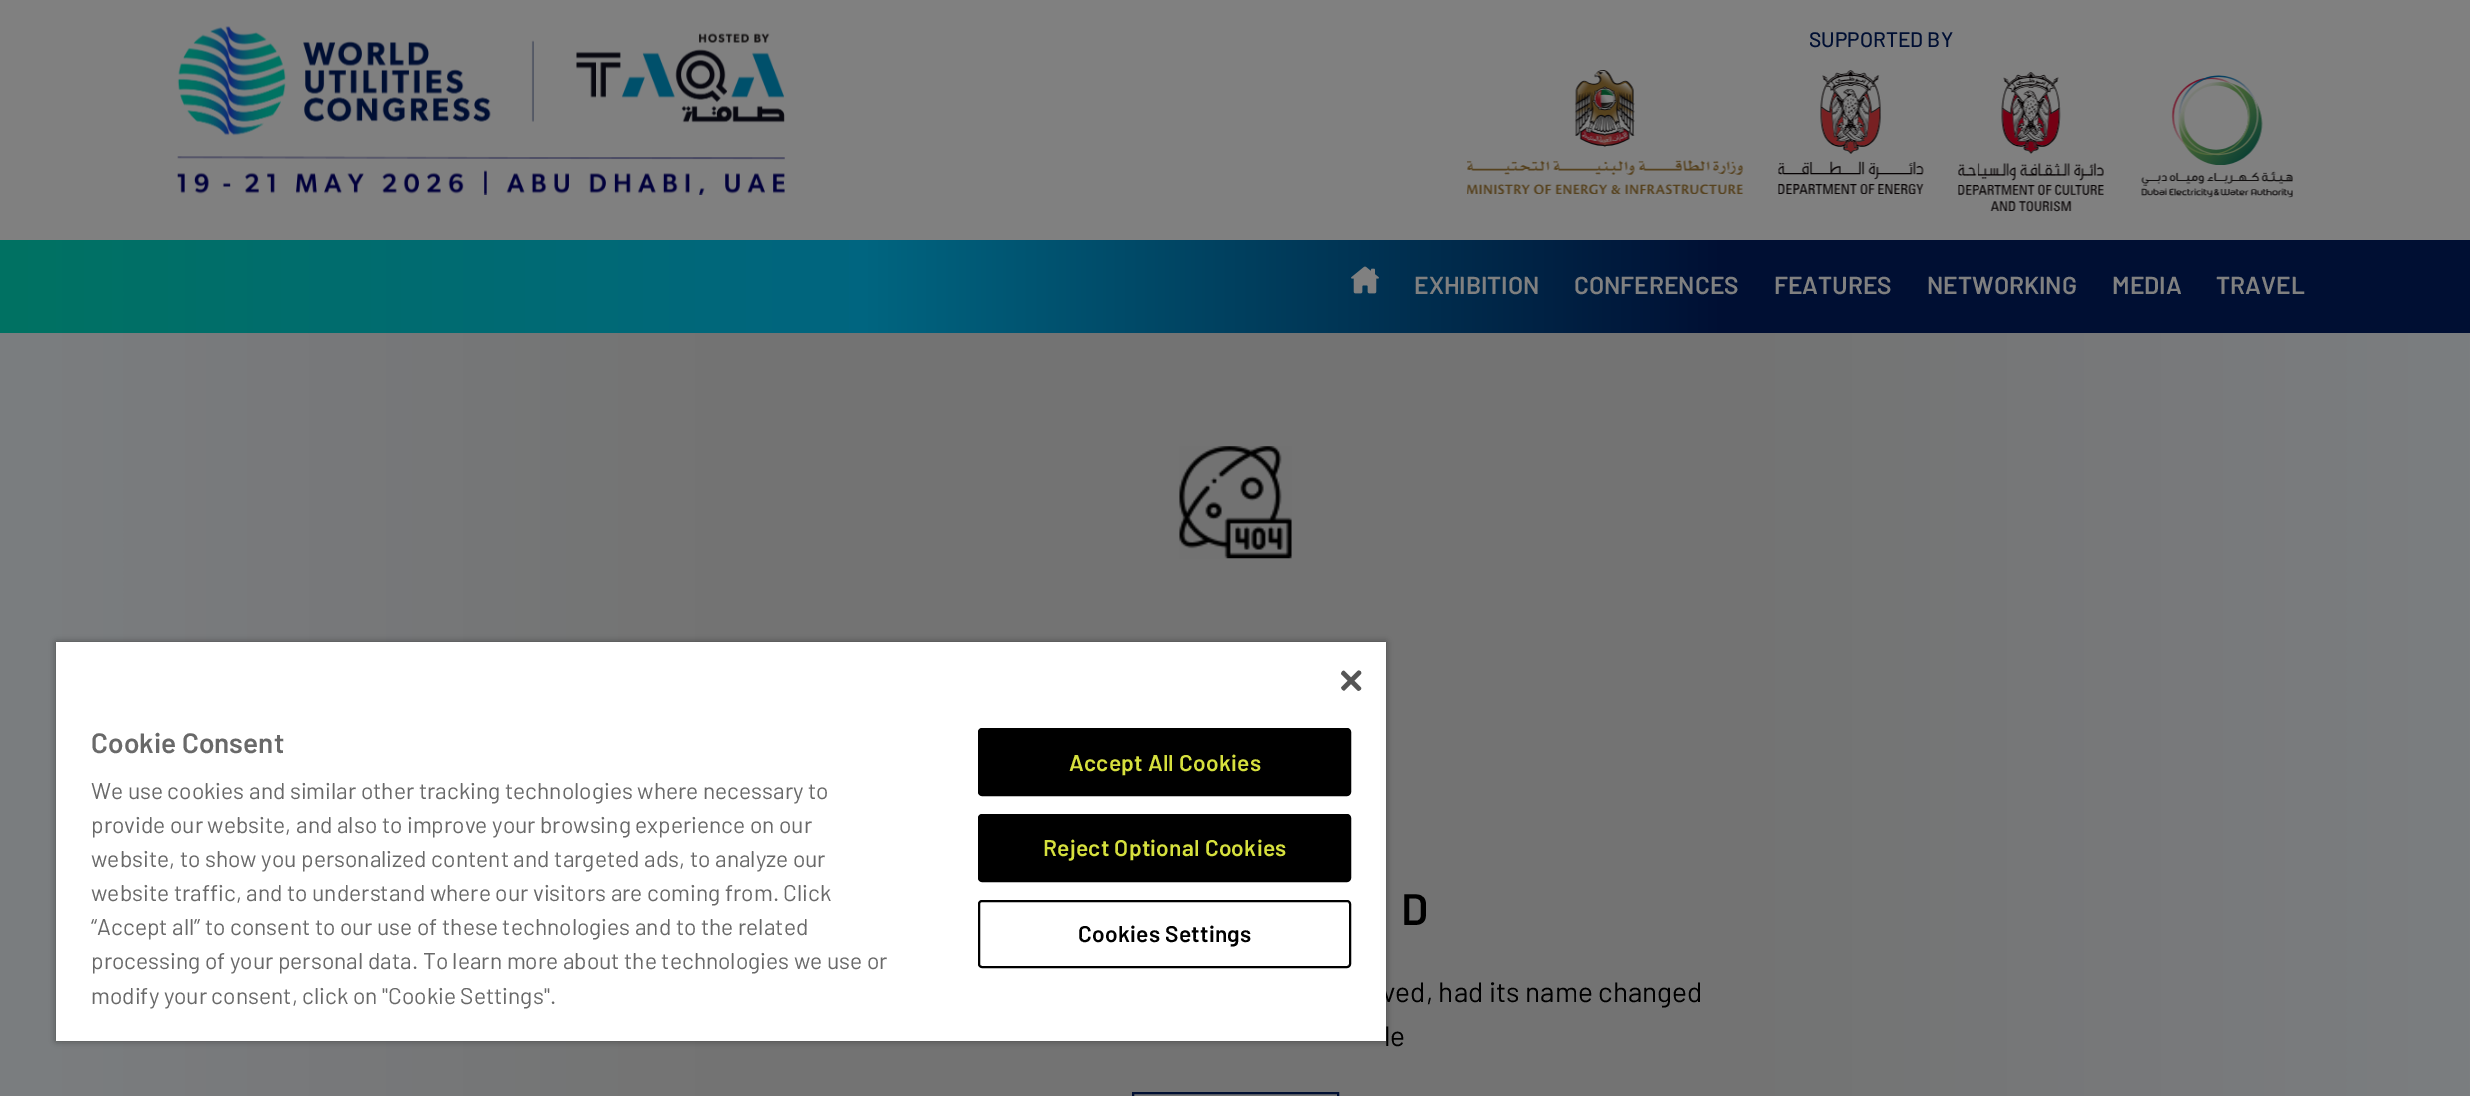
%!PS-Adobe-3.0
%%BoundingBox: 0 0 2470 1096
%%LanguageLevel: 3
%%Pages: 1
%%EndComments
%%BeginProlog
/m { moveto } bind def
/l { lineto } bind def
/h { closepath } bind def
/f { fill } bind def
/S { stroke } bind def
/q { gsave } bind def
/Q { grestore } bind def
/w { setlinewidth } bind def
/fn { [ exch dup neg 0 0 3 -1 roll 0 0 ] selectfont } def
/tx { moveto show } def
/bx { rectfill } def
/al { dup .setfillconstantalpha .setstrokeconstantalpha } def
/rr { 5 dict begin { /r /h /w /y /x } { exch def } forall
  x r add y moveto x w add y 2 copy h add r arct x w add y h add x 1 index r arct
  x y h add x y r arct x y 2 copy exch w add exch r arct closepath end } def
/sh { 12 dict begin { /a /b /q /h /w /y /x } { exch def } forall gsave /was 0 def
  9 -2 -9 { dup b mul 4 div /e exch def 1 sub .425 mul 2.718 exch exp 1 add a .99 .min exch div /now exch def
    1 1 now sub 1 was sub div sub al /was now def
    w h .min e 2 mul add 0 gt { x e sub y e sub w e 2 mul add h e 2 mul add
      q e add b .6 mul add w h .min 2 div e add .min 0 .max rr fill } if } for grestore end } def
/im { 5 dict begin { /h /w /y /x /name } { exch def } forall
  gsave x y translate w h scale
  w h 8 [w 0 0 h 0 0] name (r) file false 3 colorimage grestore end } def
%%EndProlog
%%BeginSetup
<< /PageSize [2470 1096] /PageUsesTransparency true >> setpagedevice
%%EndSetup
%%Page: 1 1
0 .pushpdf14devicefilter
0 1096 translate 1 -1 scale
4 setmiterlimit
0.502 setgray
0 0 2470 1096 bx
(image0.raw) 177 26 608 169 im
/Barlow-Medium 21 fn
0 0.059 0.2 setrgbcolor
(SUPPORTED BY) 1809 47 tx
(image1.raw) 1467 70 277 124 im
(image2.raw) 1778 70 146 124 im
(image3.raw) 1958 72 146 140 im
(image4.raw) 2141 75 152 123 im
q 0 240 m 2470 240 l 2470 333 l 0 333 l h clip newpath
<< /ShadingType 2 /ColorSpace /DeviceRGB /Coords [0 286 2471 286] /Extend [true true] /Function << /FunctionType 3 /Domain [0 1] /Functions [<< /FunctionType 2 /Domain [0 1] /C0 [0 0.447 0.384] /C1 [0 0.396 0.502] /N 1 >> << /FunctionType 2 /Domain [0 1] /C0 [0 0.396 0.502] /C1 [0 0.059 0.2] /N 1 >> << /FunctionType 2 /Domain [0 1] /C0 [0 0.059 0.2] /C1 [0 0.059 0.2] /N 1 >>] /Bounds [0.35 0.7] /Encode [0 1 0 1 0 1] >> >> shfill Q
(image5.raw) 1351 266 28 28 im
/Barlow-SemiBold 24.5 fn
0.502 setgray
(EXHIBITION) 1414 294 tx
(CONFERENCES) 1574 294 tx
(FEATURES) 1774 294 tx
(NETWORKING) 1927 294 tx
(MEDIA) 2112 294 tx
(TRAVEL) 2216 294 tx
q 0 333 m 2470 333 l 2470 1096 l 0 1096 l h clip newpath
<< /ShadingType 2 /ColorSpace /DeviceRGB /Coords [0 840 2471 840] /Extend [true true] /Function << /FunctionType 3 /Domain [0 1] /Functions [<< /FunctionType 2 /Domain [0 1] /C0 [0.482 0.494 0.502] /C1 [0.451 0.451 0.451] /N 1 >> << /FunctionType 2 /Domain [0 1] /C0 [0.451 0.451 0.451] /C1 [0.451 0.451 0.451] /N 1 >> << /FunctionType 2 /Domain [0 1] /C0 [0.451 0.451 0.451] /C1 [0.482 0.494 0.502] /N 1 >>] /Bounds [0.3 0.7] /Encode [0 1 0 1 0 1] >> >> shfill Q
0 setgray
56 642 1330 399 0 3.5 0.35 sh
/Barlow-Regular 28 fn
(ved, had its name changed) 1382 1002 tx
1 setgray
56 642 1330 399 bx
(image6.raw) 1341 670 21 21 im
/Barlow-SemiBold 28 fn
0.412 setgray
(Cookie Consent) 91 753 tx
/Barlow-Regular 22.75 fn
(We use cookies and similar other tracking technologies where necessary to) 91 799 tx
(provide our website, and also to improve your browsing experience on our) 91 833 tx
(website, to show you personalized content and targeted ads, to analyze our) 91 867 tx
(website traffic, and to understand where our visitors are coming from. Click) 91 901 tx
(“Accept all” to consent to our use of these technologies and to the related) 91 935 tx
(processing of your personal data. To learn more about the technologies we use or) 91 969 tx
(modify your consent, click on "Cookie Settings".) 91 1004 tx
0 setgray
979 729 371 66 3 rr q f Q
2 w
S
/Barlow-SemiBold 22.75 fn
0.839 0.878 0.239 setrgbcolor
1069 771 m 0.25 0 (Accept All Cookies) ashow
0 setgray
979 815 371 66 3 rr q f Q
S
0.839 0.878 0.239 setrgbcolor
1043 856 m 0.25 0 (Reject Optional Cookies) ashow
0 setgray
979 901 371 66 3 rr S
1078 942 m 0.25 0 (Cookies Settings) ashow
(image7.raw) 1179 446 113 113 im
/Barlow-SemiBold 44 fn
1401 925 m 4 0 (D) ashow
/Barlow-Regular 28 fn
(le) 1384 1046 tx
0 0.059 0.2 setrgbcolor
1133 1093 205 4 rectstroke
.poppdf14devicefilter showpage
%%EOF
